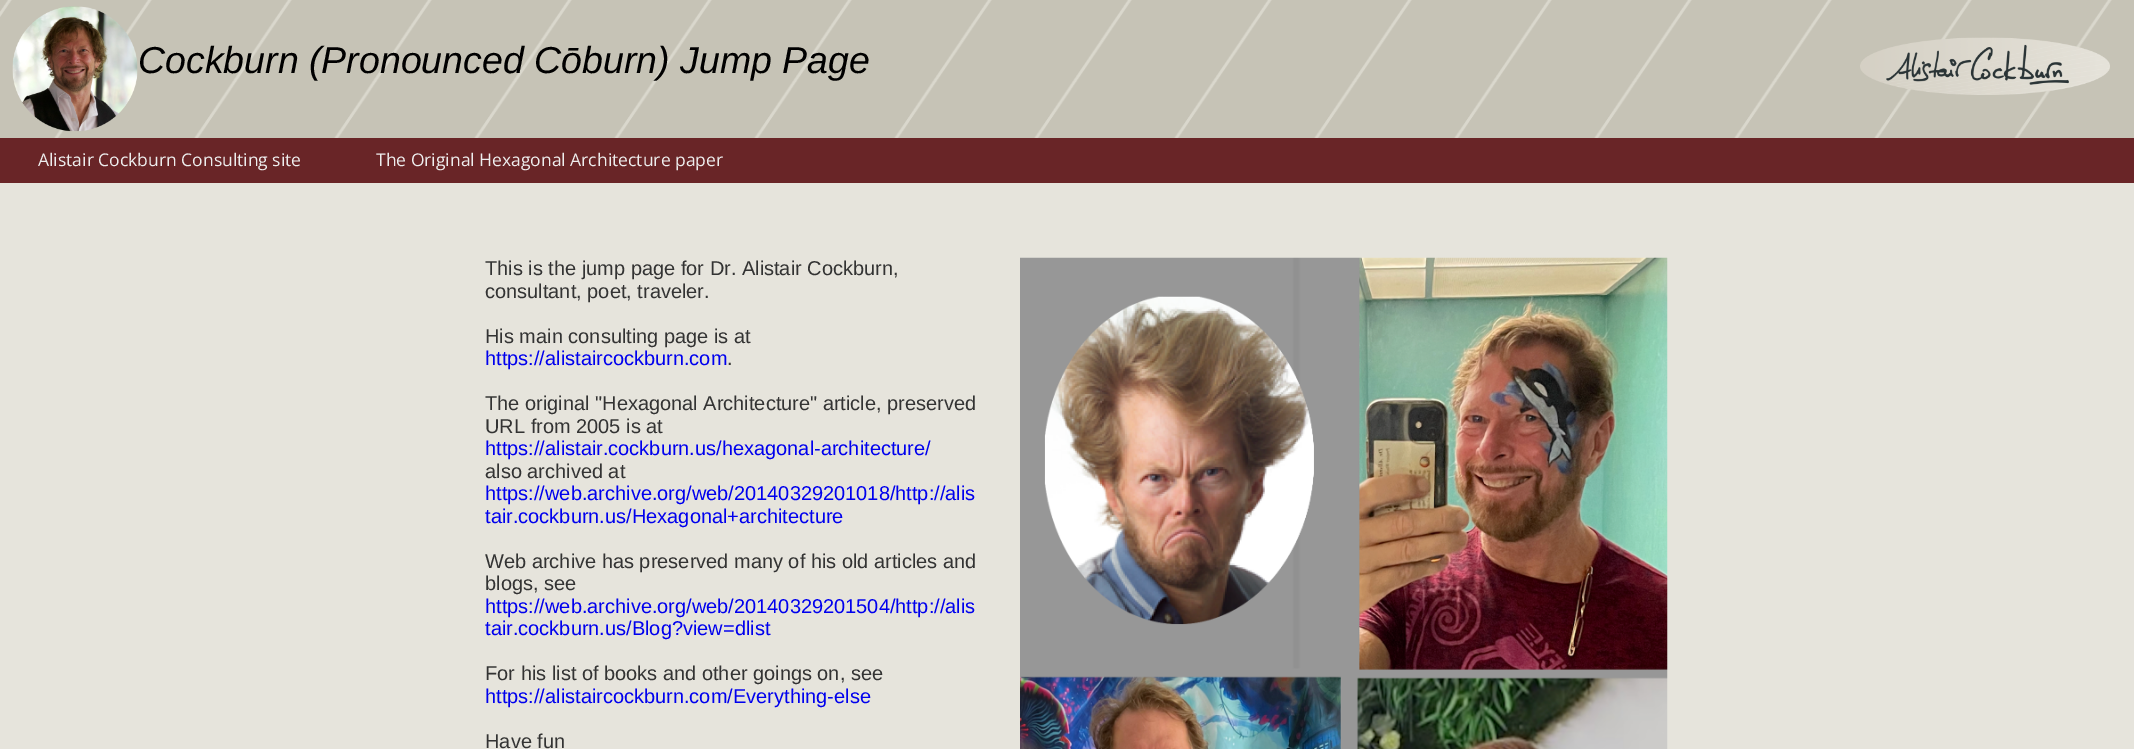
%!PS-Adobe-3.0
%%BoundingBox: 0 0 2134 749
%%LanguageLevel: 3
%%Pages: 1
%%EndComments
%%BeginProlog
/fn { [ exch dup neg 0 0 3 -1 roll 0 0 ] selectfont } def
/tx { moveto show } def
/bx { rectfill } def
/im { 5 dict begin { /h /w /y /x /name } { exch def } forall
  gsave x y translate w h scale
  w h 8 [w 0 0 h 0 0] name (r) file false 3 colorimage grestore end } def
%%EndProlog
%%BeginSetup
<< /PageSize [2134 749] >> setpagedevice
%%EndSetup
%%Page: 1 1
0 749 translate 1 -1 scale
4 setmiterlimit
1 setgray
0 0 2134 749 bx
(image0.raw) 0 0 2134 138 im
(image1.raw) 12 6 126 126 im
/LiberationSans-Italic 37.5 fn
0 setgray
(Cockburn \(Pronounced Cōburn\) Jump Page) 138 73 tx
(image2.raw) 1860 37 250 58 im
0.412 0.145 0.153 setrgbcolor
0 138 2134 45 bx
/OpenSans-Regular 17.5 fn
0.933 setgray
(Alistair Cockburn Consulting site) 38 166 tx
(The Original Hexagonal Architecture paper) 376 166 tx
0.902 0.894 0.863 setrgbcolor
0 183 2134 566 bx
/LiberationSans-Regular 20 fn
0.2 setgray
(This is the jump page for Dr. Alistair Cockburn,) 485 275 tx
(consultant, poet, traveler.) 485 298 tx
(His main consulting page is at) 485 343 tx
0 0 0.933 setrgbcolor
(https://alistaircockburn.com) 485 365 tx
0.2 setgray
(.) 727 365 tx
(The original "Hexagonal Architecture" article, preserved) 485 410 tx
(URL from 2005 is at) 485 433 tx
0 0 0.933 setrgbcolor
(https://alistair.cockburn.us/hexagonal-architecture/) 485 455 tx
0.2 setgray
(also archived at) 485 478 tx
0 0 0.933 setrgbcolor
(https://web.archive.org/web/20140329201018/http://alis) 485 500 tx
(tair.cockburn.us/Hexagonal+architecture) 485 523 tx
0.2 setgray
(Web archive has preserved many of his old articles and) 485 568 tx
(blogs, see) 485 590 tx
0 0 0.933 setrgbcolor
(https://web.archive.org/web/20140329201504/http://alis) 485 613 tx
(tair.cockburn.us/Blog?view=dlist) 485 635 tx
0.2 setgray
(For his list of books and other goings on, see) 485 680 tx
0 0 0.933 setrgbcolor
(https://alistaircockburn.com/Everything-else) 485 703 tx
0.2 setgray
(Have fun) 485 748 tx
(image3.raw) 1020 257 648 492 im
showpage
%%EOF
